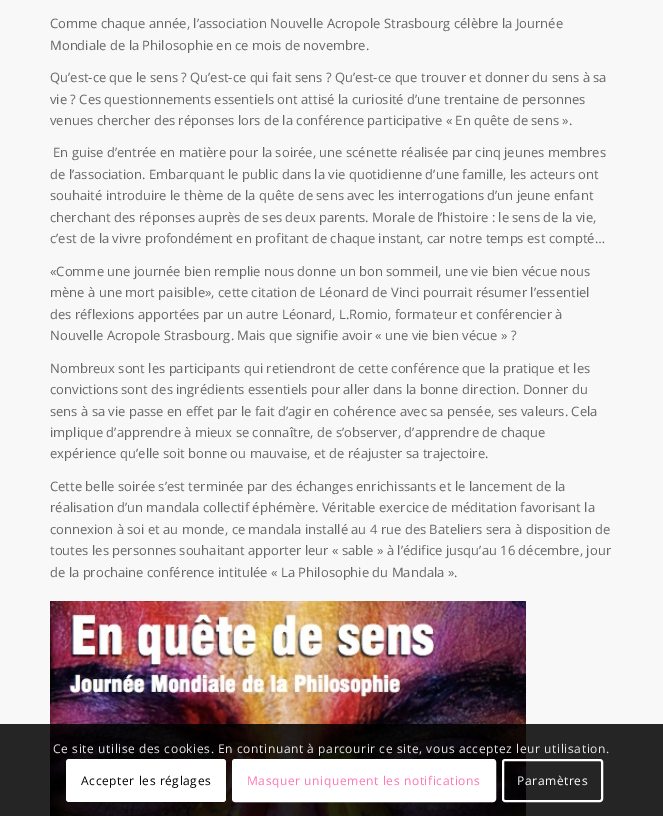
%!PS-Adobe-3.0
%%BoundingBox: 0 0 663 816
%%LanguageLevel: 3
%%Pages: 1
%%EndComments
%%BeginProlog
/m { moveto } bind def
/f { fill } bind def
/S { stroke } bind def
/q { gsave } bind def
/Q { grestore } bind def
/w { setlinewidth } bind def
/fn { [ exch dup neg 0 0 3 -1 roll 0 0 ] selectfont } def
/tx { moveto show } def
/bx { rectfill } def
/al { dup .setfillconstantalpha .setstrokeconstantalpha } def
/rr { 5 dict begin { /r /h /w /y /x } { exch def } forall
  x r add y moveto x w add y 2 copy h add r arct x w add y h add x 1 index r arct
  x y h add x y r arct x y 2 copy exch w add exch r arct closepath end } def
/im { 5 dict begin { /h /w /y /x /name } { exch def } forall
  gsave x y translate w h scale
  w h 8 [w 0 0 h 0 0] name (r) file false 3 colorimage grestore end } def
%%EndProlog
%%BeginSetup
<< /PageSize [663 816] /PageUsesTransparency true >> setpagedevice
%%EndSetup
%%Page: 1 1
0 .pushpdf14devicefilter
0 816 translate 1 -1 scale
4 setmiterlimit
0.973 setgray
0 0 663 816 bx
/OpenSans-Regular 13 fn
0.4 setgray
(Comme chaque année, l’association Nouvelle Acropole Strasbourg célèbre la Journée) 50 28 tx
(Mondiale de la Philosophie en ce mois de novembre.) 50 50 tx
(Qu’est-ce que le sens ? Qu’est-ce qui fait sens ? Qu’est-ce que trouver et donner du sens à sa) 50 82 tx
(vie ? Ces questionnements essentiels ont attisé la curiosité d’une trentaine de personnes) 50 104 tx
(venues chercher des réponses lors de la conférence participative « En quête de sens ».) 50 125 tx
(En guise d’entrée en matière pour la soirée, une scénette réalisée par cinq jeunes membres) 53 157 tx
(de l’association. Embarquant le public dans la vie quotidienne d’une famille, les acteurs ont) 50 179 tx
(souhaité introduire le thème de la quête de sens avec les interrogations d’un jeune enfant) 50 200 tx
(cherchant des réponses auprès de ses deux parents. Morale de l’histoire : le sens de la vie,) 50 222 tx
(c’est de la vivre profondément en profitant de chaque instant, car notre temps est compté…) 50 243 tx
(«Comme une journée bien remplie nous donne un bon sommeil, une vie bien vécue nous) 50 276 tx
(mène à une mort paisible», cette citation de Léonard de Vinci pourrait résumer l’essentiel) 50 297 tx
(des réflexions apportées par un autre Léonard, L.Romio, formateur et conférencier à) 50 319 tx
(Nouvelle Acropole Strasbourg. Mais que signifie avoir « une vie bien vécue » ?) 50 340 tx
(Nombreux sont les participants qui retiendront de cette conférence que la pratique et les) 50 373 tx
(convictions sont des ingrédients essentiels pour aller dans la bonne direction. Donner du) 50 394 tx
(sens à sa vie passe en effet par le fait d’agir en cohérence avec sa pensée, ses valeurs. Cela) 50 416 tx
(implique d’apprendre à mieux se connaître, de s’observer, d’apprendre de chaque) 50 437 tx
(expérience qu’elle soit bonne ou mauvaise, et de réajuster sa trajectoire.) 50 458 tx
(Cette belle soirée s’est terminée par des échanges enrichissants et le lancement de la) 50 491 tx
(réalisation d’un mandala collectif éphémère. Véritable exercice de méditation favorisant la) 50 512 tx
(connexion à soi et au monde, ce mandala installé au 4 rue des Bateliers sera à disposition de) 50 534 tx
(toutes les personnes souhaitant apporter leur « sable » à l’édifice jusqu’au 16 décembre, jour) 50 555 tx
(de la prochaine conférence intitulée « La Philosophie du Mandala ».) 50 577 tx
(image0.raw) 50 601 476 215 im
0.85 al
0 setgray
0 724 663 92 bx
/OpenSans-Regular 12 fn
1 al
0.906 setgray
53 753 m 0.6 0 (Ce site utilise des cookies. En continuant à parcourir ce site, vous acceptez leur utilisation.) ashow
1 setgray
66 759 160 43 3 rr f
0 setgray
81 785 m 0.6 0 (Accepter les réglages) ashow
1 setgray
233 760 262 41 2 rr q f Q
2 w
S
1 0.459 0.71 setrgbcolor
247 785 m 0.6 0 (Masquer uniquement les notifications) ashow
1 setgray
503 760 99 41 2 rr S
517 785 m 0.6 0 (Paramètres) ashow
.poppdf14devicefilter showpage
%%EOF
